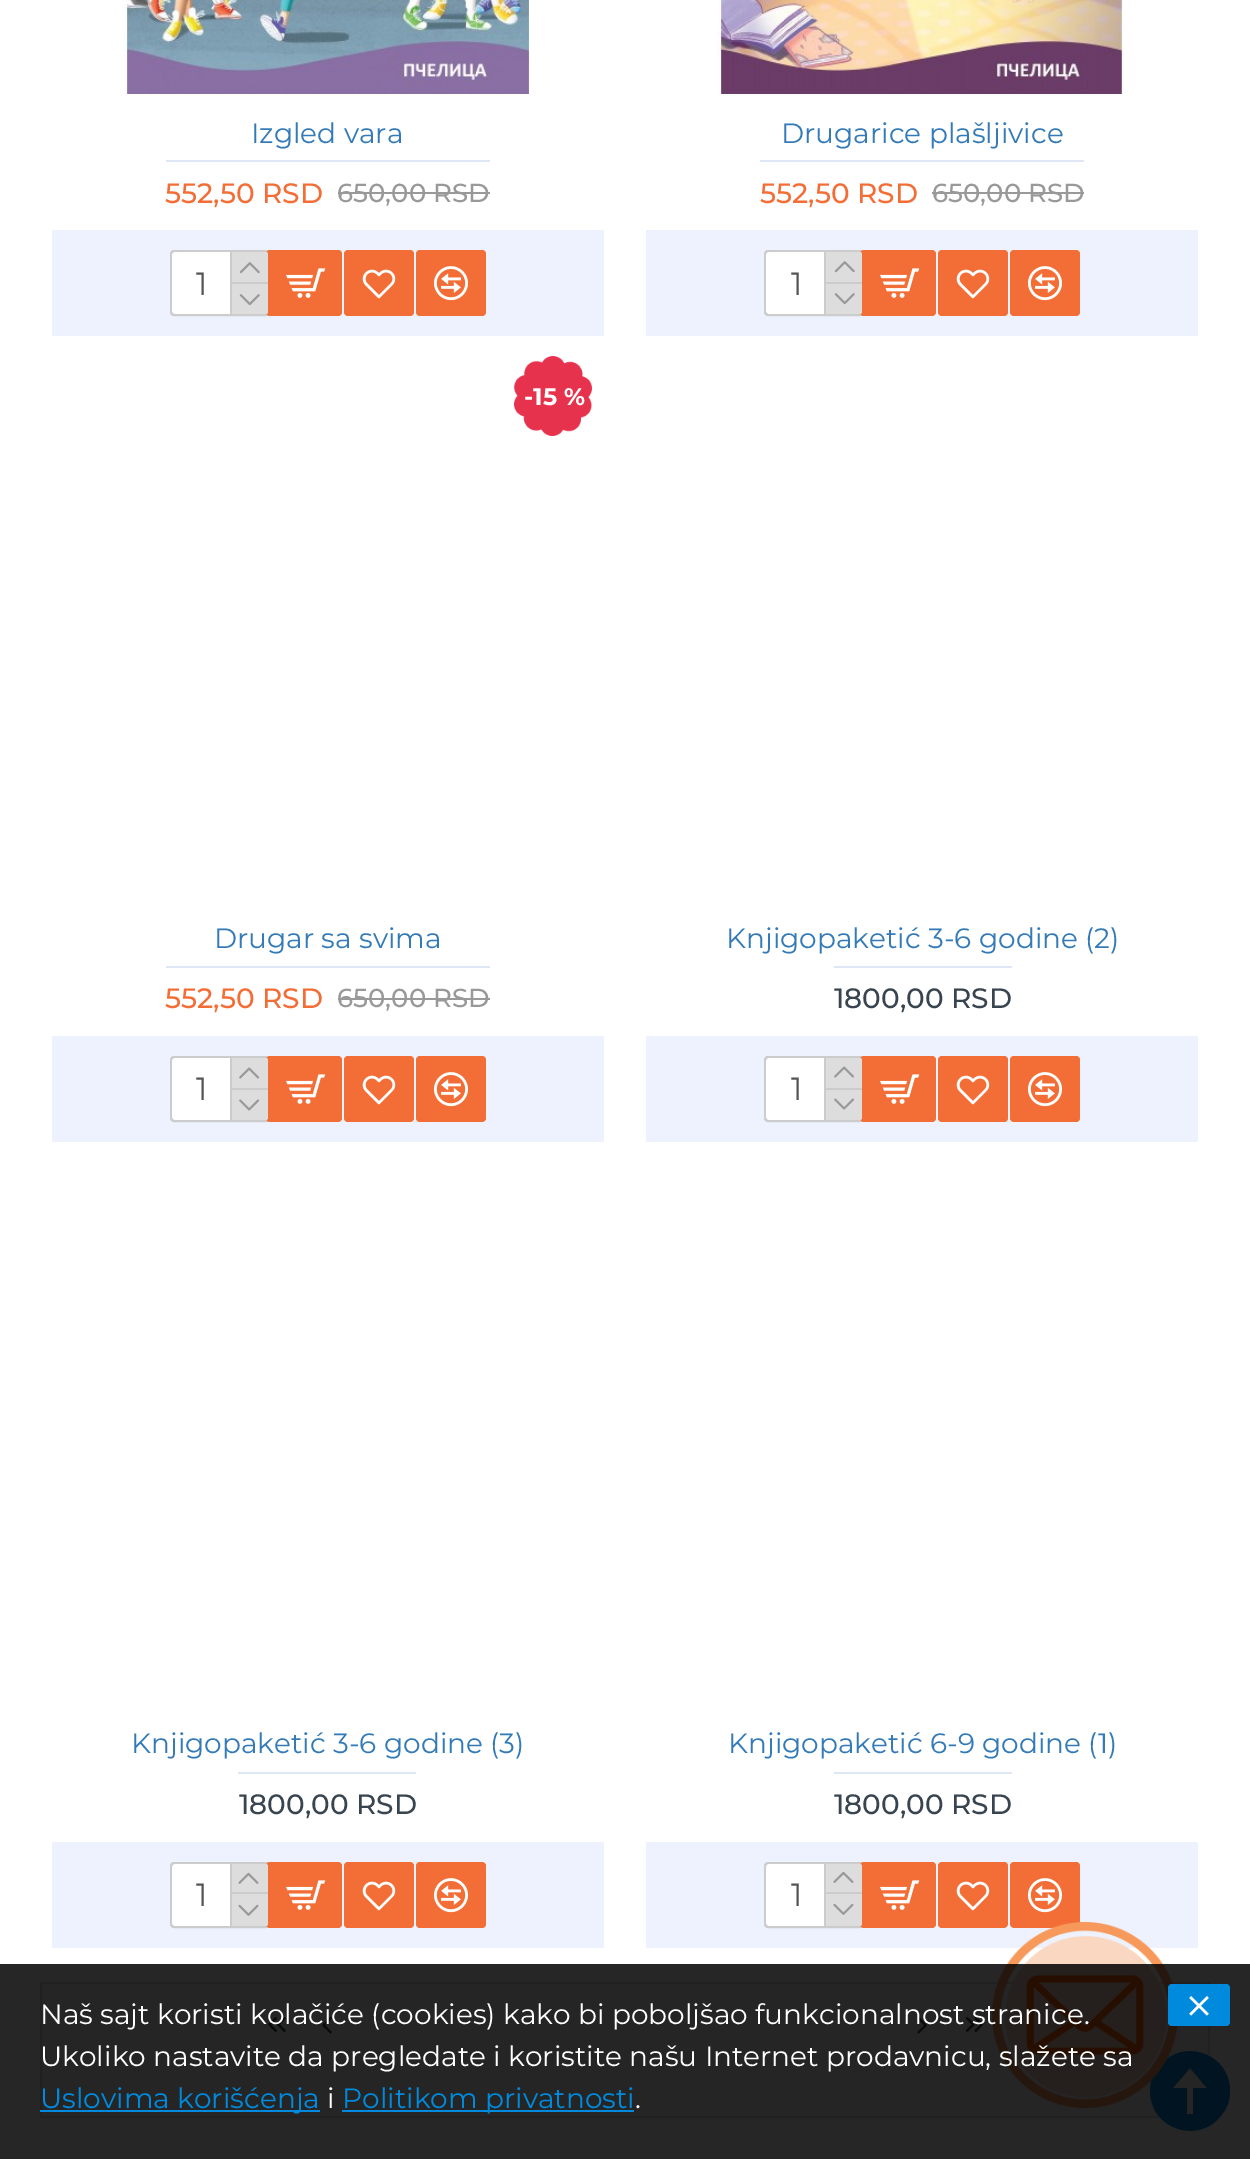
%!PS-Adobe-3.0
%%BoundingBox: 0 0 1250 2159
%%LanguageLevel: 3
%%Pages: 1
%%EndComments
%%BeginProlog
/m { moveto } bind def
/l { lineto } bind def
/c { curveto } bind def
/h { closepath } bind def
/f { fill } bind def
/S { stroke } bind def
/q { gsave } bind def
/Q { grestore } bind def
/w { setlinewidth } bind def
/fn { [ exch dup neg 0 0 3 -1 roll 0 0 ] selectfont } def
/tx { moveto show } def
/bx { rectfill } def
/al { dup .setfillconstantalpha .setstrokeconstantalpha } def
/rr { 5 dict begin { /r /h /w /y /x } { exch def } forall
  x r add y moveto x w add y 2 copy h add r arct x w add y h add x 1 index r arct
  x y h add x y r arct x y 2 copy exch w add exch r arct closepath end } def
/sh { 12 dict begin { /a /b /q /h /w /y /x } { exch def } forall gsave /was 0 def
  9 -2 -9 { dup b mul 4 div /e exch def 1 sub .425 mul 2.718 exch exp 1 add a .99 .min exch div /now exch def
    1 1 now sub 1 was sub div sub al /was now def
    w h .min e 2 mul add 0 gt { x e sub y e sub w e 2 mul add h e 2 mul add
      q e add b .6 mul add w h .min 2 div e add .min 0 .max rr fill } if } for grestore end } def
/im { 5 dict begin { /h /w /y /x /name } { exch def } forall
  gsave x y translate w h scale
  w h 8 [w 0 0 h 0 0] name (r) file false 3 colorimage grestore end } def
%%EndProlog
%%BeginSetup
<< /PageSize [1250 2159] /PageUsesTransparency true >> setpagedevice
%%EndSetup
%%Page: 1 1
0 .pushpdf14devicefilter
0 2159 translate 1 -1 scale
4 setmiterlimit
1 setgray
0 0 1250 2159 bx
(image0.raw) 123 0 407 94 im
/Montserrat-Regular 28 fn
0.2 0.478 0.718 setrgbcolor
(Izgled vara) 251 143 tx
0.875 0.906 0.969 setrgbcolor
166 160 324 2 bx
/Montserrat-Medium 28 fn
0.953 0.431 0.212 setrgbcolor
(552,50 RSD) 165 203 tx
/Montserrat-Medium 26 fn
0.6 setgray
(650,00 RSD) 337 202 tx
338 192 152 2 bx
0.929 0.949 0.996 setrgbcolor
52 230 552 106 bx
0.8 setgray
2 w
171 251 98 64 3 rr S
q
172 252 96 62 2 rr clip newpath
0 setgray
176 260 88 54 0 15 0.15 sh
Q
1 setgray
172 252 96 62 4 rr f
/Montserrat-Regular 32 fn
0.333 setgray
(1) 196 295 tx
0.8 setgray
230 252 2 62 bx
0.953 0.431 0.212 setrgbcolor
266 250 76 66 4 rr f
0.867 setgray
232 252 m 266 252 l 267 252 268 253 268 254 c 268 282 l 232 282 l h f
0.8 setgray
232 282 36 2 bx
(image1.raw) 239 262 21 12 im
0.867 setgray
232 284 m 268 284 l 268 312 l 268 313 267 314 266 314 c 232 314 l h f
(image2.raw) 239 294 21 12 im
(image3.raw) 286 268 40 30 im
0.953 0.431 0.212 setrgbcolor
344 250 70 66 4 rr f
(image4.raw) 362 269 34 30 im
416 250 70 66 4 rr f
(image5.raw) 434 266 34 35 im
(image6.raw) 717 0 407 94 im
/Montserrat-Regular 28 fn
0.2 0.478 0.718 setrgbcolor
(Drugarice plašljivice) 781 143 tx
0.875 0.906 0.969 setrgbcolor
760 160 324 2 bx
/Montserrat-Medium 28 fn
0.953 0.431 0.212 setrgbcolor
(552,50 RSD) 760 203 tx
/Montserrat-Medium 26 fn
0.6 setgray
(650,00 RSD) 932 202 tx
932 192 152 2 bx
0.929 0.949 0.996 setrgbcolor
646 230 552 106 bx
0.8 setgray
765 251 98 64 3 rr S
q
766 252 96 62 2 rr clip newpath
0 setgray
770 260 88 54 0 15 0.15 sh
Q
1 setgray
766 252 96 62 4 rr f
/Montserrat-Regular 32 fn
0.333 setgray
(1) 791 295 tx
0.8 setgray
824 252 2 62 bx
0.953 0.431 0.212 setrgbcolor
860 250 76 66 4 rr f
0.867 setgray
826 252 m 860 252 l 861 252 862 253 862 254 c 862 282 l 826 282 l h f
0.8 setgray
826 282 36 2 bx
(image7.raw) 834 261 21 12 im
0.867 setgray
826 284 m 862 284 l 862 312 l 862 313 861 314 860 314 c 826 314 l h f
(image8.raw) 834 293 21 12 im
(image3.raw) 880 268 40 30 im
0.953 0.431 0.212 setrgbcolor
938 250 70 66 4 rr f
(image4.raw) 956 269 34 30 im
1010 250 70 66 4 rr f
(image5.raw) 1028 266 34 35 im
(image9.raw) 514 356 78 80 im
/Montserrat-Bold 24 fn
1 setgray
(-15 %) 524 405 tx
/Montserrat-Regular 28 fn
0.2 0.478 0.718 setrgbcolor
(Drugar sa svima) 214 948 tx
0.875 0.906 0.969 setrgbcolor
166 966 324 2 bx
/Montserrat-Medium 28 fn
0.953 0.431 0.212 setrgbcolor
(552,50 RSD) 165 1008 tx
/Montserrat-Medium 26 fn
0.6 setgray
(650,00 RSD) 337 1007 tx
338 998 152 2 bx
0.929 0.949 0.996 setrgbcolor
52 1036 552 106 bx
0.8 setgray
171 1057 98 64 3 rr S
q
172 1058 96 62 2 rr clip newpath
0 setgray
176 1066 88 54 0 15 0.15 sh
Q
1 setgray
172 1058 96 62 4 rr f
/Montserrat-Regular 32 fn
0.333 setgray
(1) 196 1100 tx
0.8 setgray
230 1058 2 62 bx
0.953 0.431 0.212 setrgbcolor
266 1056 76 66 4 rr f
0.867 setgray
232 1058 m 266 1058 l 267 1058 268 1059 268 1060 c 268 1088 l 232 1088 l h f
0.8 setgray
232 1088 36 2 bx
(image10.raw) 239 1067 21 12 im
0.867 setgray
232 1090 m 268 1090 l 268 1118 l 268 1119 267 1120 266 1120 c 232 1120 l h f
(image11.raw) 239 1099 21 12 im
(image3.raw) 286 1074 40 30 im
0.953 0.431 0.212 setrgbcolor
344 1056 70 66 4 rr f
(image4.raw) 362 1075 34 30 im
416 1056 70 66 4 rr f
(image5.raw) 434 1072 34 35 im
/Montserrat-Regular 28 fn
0.2 0.478 0.718 setrgbcolor
(Knjigopaketić 3-6 godine \(2\)) 726 948 tx
0.875 0.906 0.969 setrgbcolor
834 966 178 2 bx
/Montserrat-Medium 28 fn
0.22 0.267 0.31 setrgbcolor
(1800,00 RSD) 834 1008 tx
0.929 0.949 0.996 setrgbcolor
646 1036 552 106 bx
0.8 setgray
765 1057 98 64 3 rr S
q
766 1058 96 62 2 rr clip newpath
0 setgray
770 1066 88 54 0 15 0.15 sh
Q
1 setgray
766 1058 96 62 4 rr f
/Montserrat-Regular 32 fn
0.333 setgray
(1) 791 1100 tx
0.8 setgray
824 1058 2 62 bx
0.953 0.431 0.212 setrgbcolor
860 1056 76 66 4 rr f
0.867 setgray
826 1058 m 860 1058 l 861 1058 862 1059 862 1060 c 862 1088 l 826 1088 l h f
0.8 setgray
826 1088 36 2 bx
(image12.raw) 834 1066 20 12 im
0.867 setgray
826 1090 m 862 1090 l 862 1118 l 862 1119 861 1120 860 1120 c 826 1120 l h f
(image13.raw) 834 1098 20 12 im
(image3.raw) 880 1074 40 30 im
0.953 0.431 0.212 setrgbcolor
938 1056 70 66 4 rr f
(image4.raw) 956 1075 34 30 im
1010 1056 70 66 4 rr f
(image5.raw) 1028 1072 34 35 im
/Montserrat-Regular 28 fn
0.2 0.478 0.718 setrgbcolor
(Knjigopaketić 3-6 godine \(3\)) 131 1753 tx
0.875 0.906 0.969 setrgbcolor
238 1772 178 2 bx
/Montserrat-Medium 28 fn
0.22 0.267 0.31 setrgbcolor
(1800,00 RSD) 239 1814 tx
0.929 0.949 0.996 setrgbcolor
52 1842 552 106 bx
0.8 setgray
171 1863 98 64 3 rr S
q
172 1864 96 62 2 rr clip newpath
0 setgray
176 1872 88 54 0 15 0.15 sh
Q
1 setgray
172 1864 96 62 4 rr f
/Montserrat-Regular 32 fn
0.333 setgray
(1) 196 1906 tx
0.8 setgray
230 1864 2 62 bx
0.953 0.431 0.212 setrgbcolor
266 1862 76 66 4 rr f
0.867 setgray
232 1864 m 266 1864 l 267 1864 268 1865 268 1866 c 268 1892 l 232 1892 l h f
0.8 setgray
232 1892 36 2 bx
(image14.raw) 238 1872 21 12 im
0.867 setgray
232 1894 m 268 1894 l 268 1924 l 268 1925 267 1926 266 1926 c 232 1926 l h f
(image15.raw) 238 1904 21 12 im
(image3.raw) 286 1880 40 30 im
0.953 0.431 0.212 setrgbcolor
344 1862 70 66 4 rr f
(image4.raw) 362 1881 34 30 im
416 1862 70 66 4 rr f
(image5.raw) 434 1878 34 35 im
/Montserrat-Regular 28 fn
0.2 0.478 0.718 setrgbcolor
(Knjigopaketić 6-9 godine \(1\)) 728 1753 tx
0.875 0.906 0.969 setrgbcolor
834 1772 178 2 bx
/Montserrat-Medium 28 fn
0.22 0.267 0.31 setrgbcolor
(1800,00 RSD) 834 1814 tx
0.929 0.949 0.996 setrgbcolor
646 1842 552 106 bx
0.8 setgray
765 1863 98 64 3 rr S
q
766 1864 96 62 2 rr clip newpath
0 setgray
770 1872 88 54 0 15 0.15 sh
Q
1 setgray
766 1864 96 62 4 rr f
/Montserrat-Regular 32 fn
0.333 setgray
(1) 791 1906 tx
0.8 setgray
824 1864 2 62 bx
0.953 0.431 0.212 setrgbcolor
860 1862 76 66 4 rr f
0.867 setgray
826 1864 m 860 1864 l 861 1864 862 1865 862 1866 c 862 1892 l 826 1892 l h f
0.8 setgray
826 1892 36 2 bx
(image16.raw) 833 1871 21 12 im
0.867 setgray
826 1894 m 862 1894 l 862 1924 l 862 1925 861 1926 860 1926 c 826 1926 l h f
(image17.raw) 833 1903 21 12 im
(image3.raw) 880 1880 40 30 im
0.953 0.431 0.212 setrgbcolor
938 1862 70 66 4 rr f
(image4.raw) 956 1881 34 30 im
1010 1862 70 66 4 rr f
(image5.raw) 1028 1878 34 35 im
0.961 setgray
41 1983 m 1209 1983 l 1209 2117 l 41 2117 l h q f Q
0.867 setgray
S
(image18.raw) 268 2017 18 15 im
(image19.raw) 322 2016 10 18 im
(image20.raw) 917 2016 10 18 im
(image21.raw) 965 2017 19 15 im
0.929 0.949 0.996 setrgbcolor
0 2158 1250 1 bx
0 0.541 0.867 setrgbcolor
1150 2091 m 1150 2130 1201 2146 1223 2113 c 1228 2107 1230 2099 1230 2091 c 1230 2052 1179 2036 1157 2069 c 1152 2075 1150 2083 1150 2091 c h 1207 2088 m 1193 2088 l 1193 2114 l 1187 2114 l 1187 2088 l 1173 2088 l 1190 2068 l h f
(image22.raw) 992 1922 186 186 im
0.85 al
0 setgray
0 1964 1250 195 bx
/Montserrat-Regular 28 fn
1 al
1 setgray
(Naš sajt koristi kolačiće \(cookies\) kako bi poboljšao funkcionalnost stranice.) 40 2024 tx
(Ukoliko nastavite da pregledate i koristite našu Internet prodavnicu, slažete sa) 40 2066 tx
0 0.541 0.867 setrgbcolor
40 2110 280 2 bx
(Uslovima korišćenja) 40 2108 tx
1 setgray
(i) 327 2108 tx
0 0.541 0.867 setrgbcolor
342 2110 292 2 bx
(Politikom privatnosti) 342 2108 tx
1 setgray
(.) 635 2108 tx
0 0.541 0.867 setrgbcolor
1168 1984 62 42 4 rr f
(image23.raw) 1189 1996 20 20 im
.poppdf14devicefilter showpage
%%EOF
